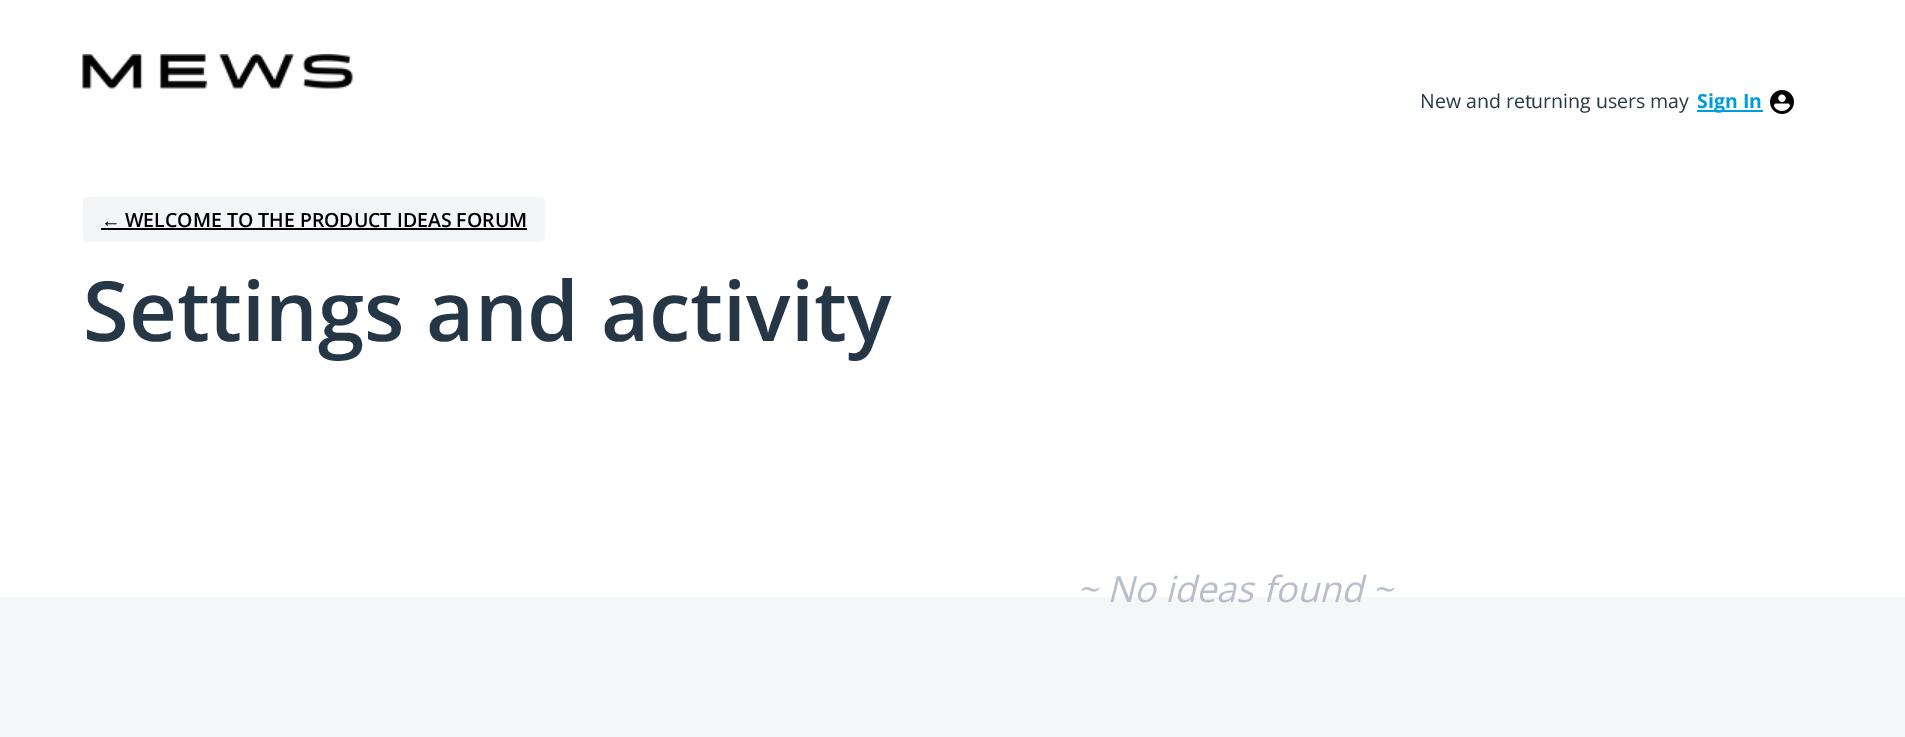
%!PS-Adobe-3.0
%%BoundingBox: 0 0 1905 737
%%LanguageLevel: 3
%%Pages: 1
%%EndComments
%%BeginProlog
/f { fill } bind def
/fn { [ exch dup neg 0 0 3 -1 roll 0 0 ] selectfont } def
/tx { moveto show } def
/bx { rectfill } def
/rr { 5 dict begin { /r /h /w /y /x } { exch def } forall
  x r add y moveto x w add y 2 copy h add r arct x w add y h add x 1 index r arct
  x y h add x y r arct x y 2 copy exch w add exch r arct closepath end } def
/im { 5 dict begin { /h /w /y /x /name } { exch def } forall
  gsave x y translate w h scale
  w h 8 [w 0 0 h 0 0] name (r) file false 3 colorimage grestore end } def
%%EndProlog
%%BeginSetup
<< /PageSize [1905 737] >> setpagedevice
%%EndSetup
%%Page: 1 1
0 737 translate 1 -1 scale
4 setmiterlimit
1 setgray
0 0 1905 737 bx
(image0.raw) 82 54 271 35 im
/OpenSans-Regular 19.5 fn
0.145 0.216 0.275 setrgbcolor
(New and returning users may) 1420 108 tx
0 0.612 0.871 setrgbcolor
1697 110 66 2 bx
/OpenSans-Bold 19.5 fn
(Sign In) 1697 108 tx
(image1.raw) 1770 90 24 24 im
0.957 0.961 0.965 setrgbcolor
83 197 462 45 5 rr f
/LiberationSans-Bold 19.5 fn
0 setgray
(←) 101 227 tx
101 228 426 2 bx
/OpenSans-SemiBold 19.5 fn
(WELCOME TO THE PRODUCT IDEAS FORUM) 125 227 tx
/OpenSans-SemiBold 83.1 fn
0.145 0.216 0.275 setrgbcolor
(Settings and activity) 83 341 tx
0.961 0.965 0.969 setrgbcolor
0 597 1905 140 bx
/OpenSans-Italic 36 fn
0.722 0.745 0.8 setrgbcolor
(~ No ideas found ~) 1077 602 tx
showpage
%%EOF
